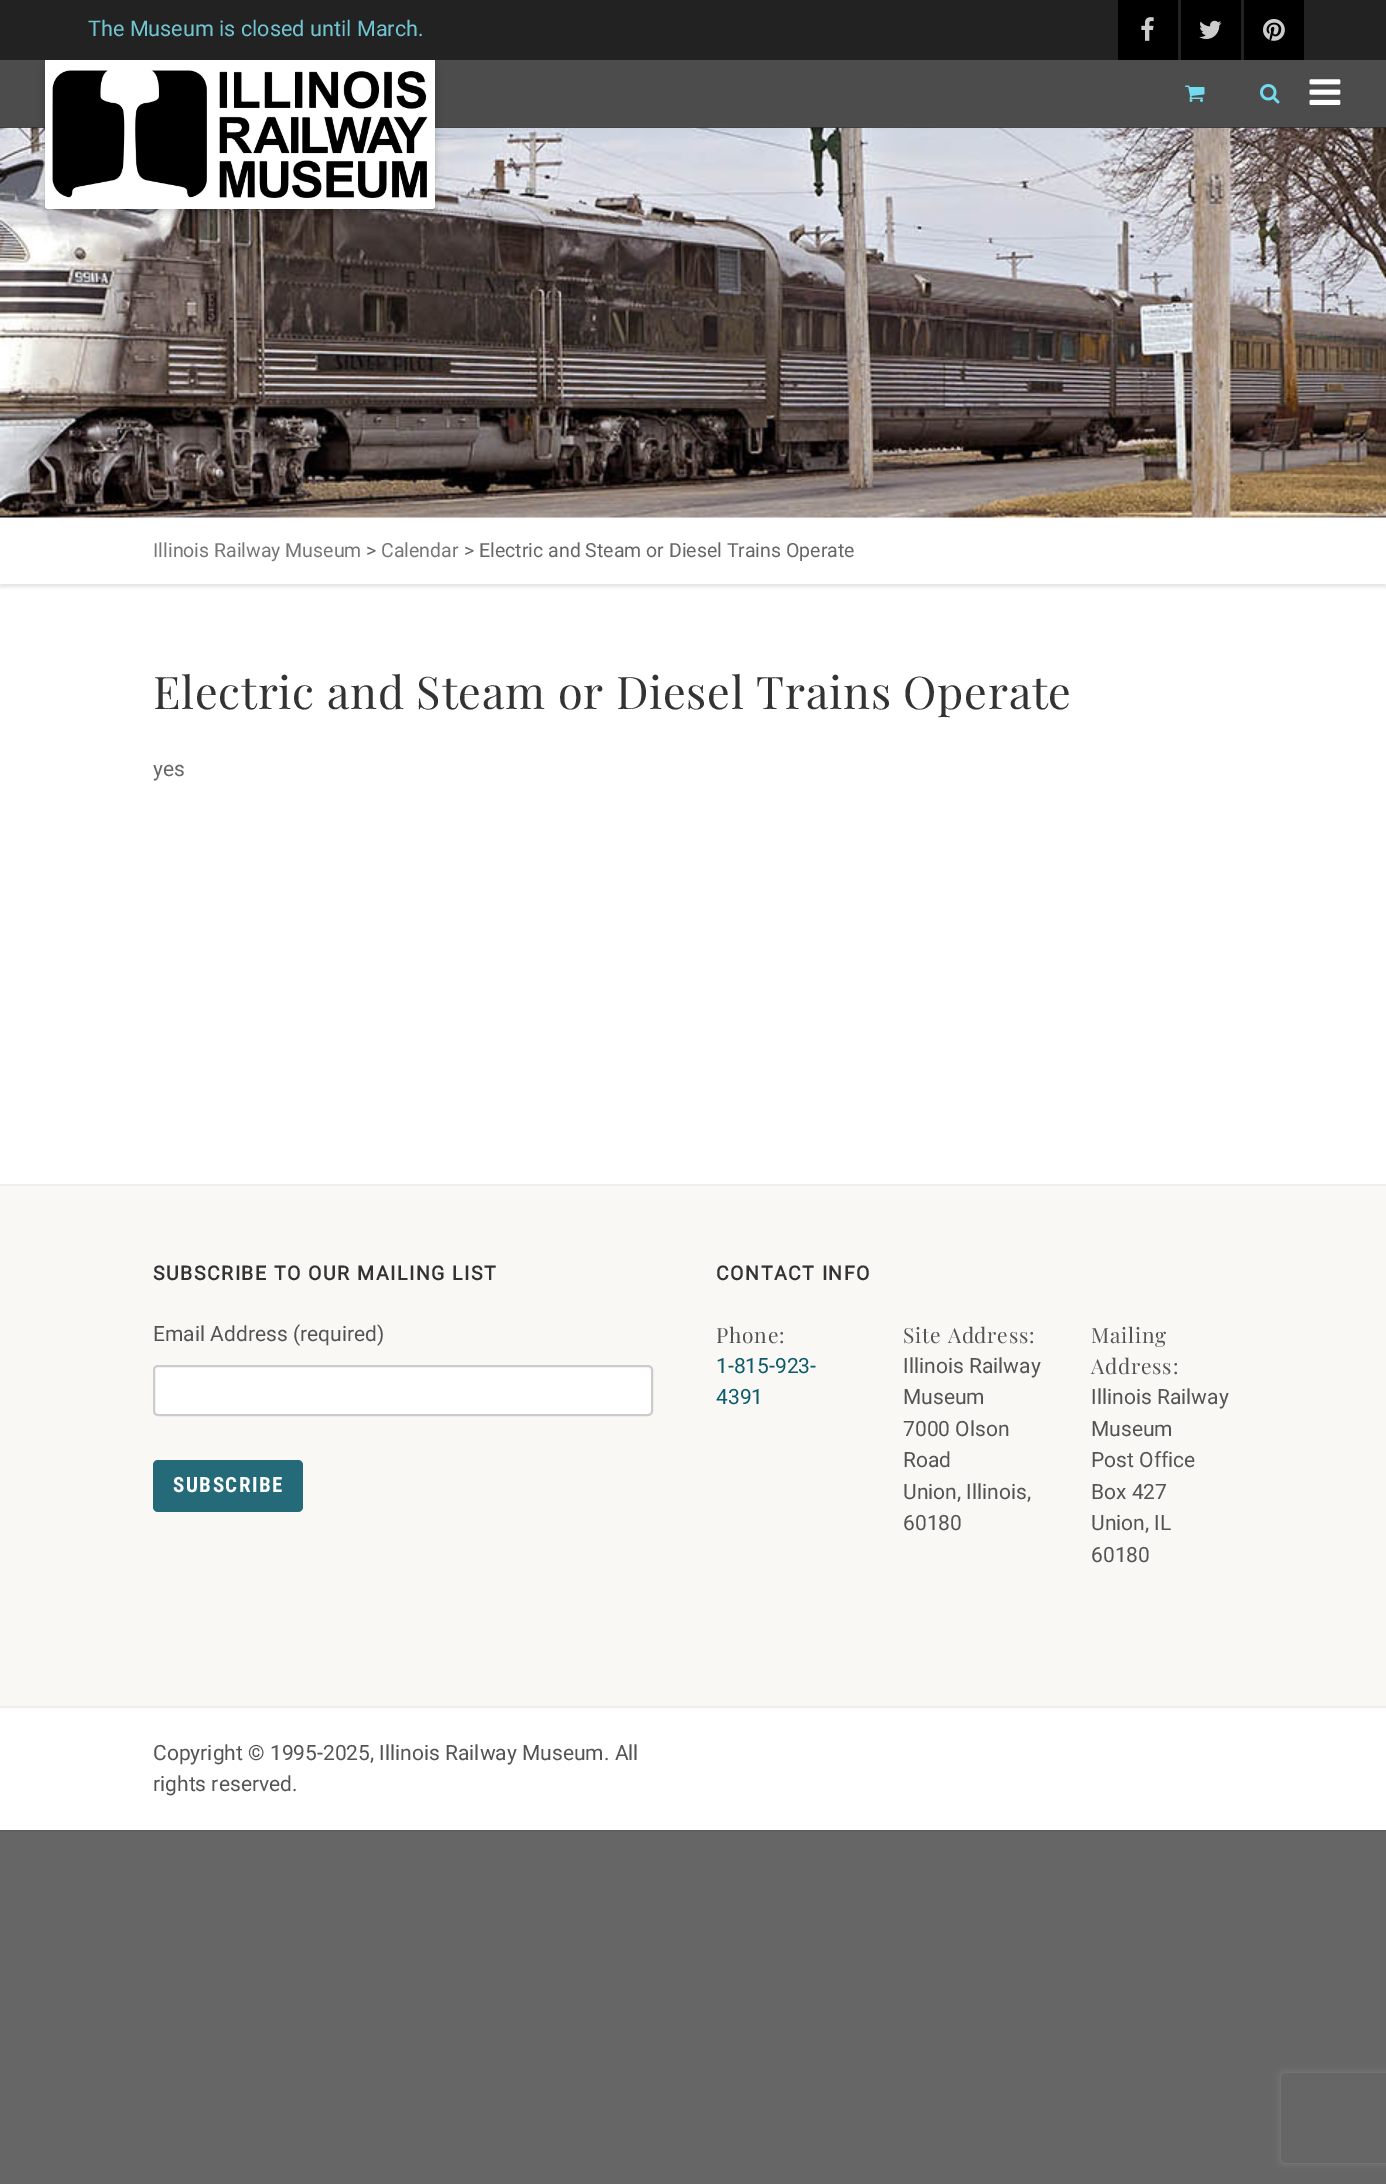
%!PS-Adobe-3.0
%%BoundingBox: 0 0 1386 2184
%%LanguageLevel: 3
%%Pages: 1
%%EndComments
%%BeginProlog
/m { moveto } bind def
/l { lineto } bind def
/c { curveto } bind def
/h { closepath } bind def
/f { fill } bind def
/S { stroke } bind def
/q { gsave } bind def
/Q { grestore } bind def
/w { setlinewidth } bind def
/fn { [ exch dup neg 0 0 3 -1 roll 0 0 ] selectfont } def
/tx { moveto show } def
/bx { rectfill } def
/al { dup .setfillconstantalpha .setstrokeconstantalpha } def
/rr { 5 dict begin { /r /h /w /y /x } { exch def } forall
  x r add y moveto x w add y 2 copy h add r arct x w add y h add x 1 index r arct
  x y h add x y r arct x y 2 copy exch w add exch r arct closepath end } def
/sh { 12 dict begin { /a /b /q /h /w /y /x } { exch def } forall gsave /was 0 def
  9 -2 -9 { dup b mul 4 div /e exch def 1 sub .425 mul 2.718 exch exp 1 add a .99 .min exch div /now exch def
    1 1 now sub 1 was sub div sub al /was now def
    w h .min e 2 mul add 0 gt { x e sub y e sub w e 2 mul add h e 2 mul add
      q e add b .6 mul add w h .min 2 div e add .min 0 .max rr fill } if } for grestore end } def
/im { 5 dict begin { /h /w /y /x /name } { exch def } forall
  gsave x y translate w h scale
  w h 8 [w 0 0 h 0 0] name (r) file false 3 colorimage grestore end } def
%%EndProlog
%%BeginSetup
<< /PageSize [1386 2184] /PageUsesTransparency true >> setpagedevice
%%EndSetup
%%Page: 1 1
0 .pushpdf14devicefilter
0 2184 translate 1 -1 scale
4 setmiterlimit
0.4 setgray
0 0 1386 2184 bx
0 setgray
0 0 1386 1830 0 1.5 0.2 sh
1 setgray
0 60 1386 1770 bx
0.133 setgray
0 0 1386 60 bx
/Roboto-Regular 21.6 fn
0.443 0.773 0.827 setrgbcolor
(The Museum is closed until March.) 88 36 tx
0 setgray
1118 0 60 60 bx
(image0.raw) 1141 17 13 24 im
1181 0 60 60 bx
(image1.raw) 1199 20 23 19 im
1244 0 60 60 bx
(image2.raw) 1263 19 22 22 im
0.902 setgray
0 521 1386 66 0 1.5 1 sh
0.973 setgray
0 517 1386 1 bx
(image7.raw) 0 127 1386 391 im
0.7 al
0 setgray
0 60 1386 68 bx
1 al
45 65 390 148 3 4 0.2 sh
1 setgray
45 60 m 435 60 l 435 206 l 435 207.5 433.5 209 432 209 c 48 209 l 46.5 209 45 207.5 45 206 c h f
(image3.raw) 52 70 376 128 im
(image4.raw) 1185 85 20 17 im
(image5.raw) 1260 84 20 20 im
(image6.raw) 1309 79 32 26 im
0 519 1386 65 bx
/Roboto-Regular 19.5 fn
0.463 setgray
(Illinois Railway Museum) 153 557 tx
0.4 setgray
(>) 366 557 tx
0.463 setgray
(Calendar) 381 557 tx
0.4 setgray
(> Electric and Steam or Diesel Trains Operate) 464 557 tx
/PlayfairDisplay-Regular 45 fn
0.2 setgray
153 709 m 0.75 0 (Electric and Steam or Diesel Trains Operate) ashow
/Roboto-Regular 21 fn
0.4 setgray
(yes) 153 776 tx
0.976 0.973 0.961 setrgbcolor
0 1186 1386 520 bx
0.933 setgray
0 1184 1386 2 bx
/Roboto-Bold 19.5 fn
0.2 setgray
153 1280 m 1.5 0 (SUBSCRIBE TO OUR MAILING LIST) ashow
/Roboto-Regular 21 fn
0.329 setgray
(Email Address \(required\)) 153 1341 tx
1 setgray
154 1366 498 49 4 rr q f Q
0.8 setgray
2 w
S
0.141 0.416 0.471 setrgbcolor
153 1460 150 52 5 rr f
/RobotoCondensed-Bold 21 fn
0.996 setgray
173 1492 m 1.5 0 (SUBSCRIBE) ashow
/Roboto-Bold 19.5 fn
0.2 setgray
716 1280 m 1.5 0 (CONTACT INFO) ashow
/PlayfairDisplay-Regular 21 fn
0.329 setgray
716 1343 m 0.75 0 (Phone:) ashow
/Roboto-Regular 21 fn
0.047 0.353 0.416 setrgbcolor
(1-815-923-) 716 1373 tx
(4391) 716 1404 tx
/PlayfairDisplay-Regular 21 fn
0.329 setgray
903 1343 m 0.75 0 (Site Address:) ashow
/Roboto-Regular 21 fn
(Illinois Railway) 903 1373 tx
(Museum) 903 1404 tx
(7000 Olson) 903 1436 tx
(Road) 903 1467 tx
(Union, Illinois,) 903 1499 tx
(60180) 903 1530 tx
/PlayfairDisplay-Regular 21 fn
1091 1343 m 0.75 0 (Mailing) ashow
1091 1374 m 0.75 0 (Address:) ashow
/Roboto-Regular 21 fn
(Illinois Railway) 1091 1404 tx
(Museum) 1091 1436 tx
(Post Office) 1091 1467 tx
(Box 427) 1091 1499 tx
(Union, IL) 1091 1530 tx
(60180) 1091 1562 tx
0.933 setgray
0 1706 1386 2 bx
0.329 setgray
(Copyright © 1995-2025, Illinois Railway Museum. All) 153 1760 tx
(rights reserved.) 153 1791 tx
q
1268 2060 m 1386 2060 l 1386 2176 l 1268 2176 l h 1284 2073 m 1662 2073 l 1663.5 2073 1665 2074.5 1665 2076 c 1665 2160 l 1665 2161.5 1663.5 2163 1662 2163 c 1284 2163 l 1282.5 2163 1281 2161.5 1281 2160 c 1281 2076 l 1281 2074.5 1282.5 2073 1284 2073 c h eoclip newpath
0.502 setgray
1281 2073 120 90 3 4 1 sh
Q
.poppdf14devicefilter showpage
%%EOF
